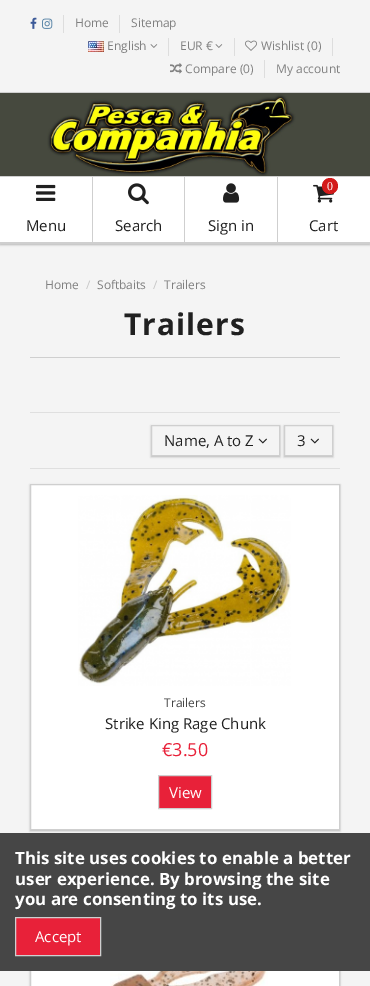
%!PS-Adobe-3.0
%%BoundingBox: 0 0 370 986
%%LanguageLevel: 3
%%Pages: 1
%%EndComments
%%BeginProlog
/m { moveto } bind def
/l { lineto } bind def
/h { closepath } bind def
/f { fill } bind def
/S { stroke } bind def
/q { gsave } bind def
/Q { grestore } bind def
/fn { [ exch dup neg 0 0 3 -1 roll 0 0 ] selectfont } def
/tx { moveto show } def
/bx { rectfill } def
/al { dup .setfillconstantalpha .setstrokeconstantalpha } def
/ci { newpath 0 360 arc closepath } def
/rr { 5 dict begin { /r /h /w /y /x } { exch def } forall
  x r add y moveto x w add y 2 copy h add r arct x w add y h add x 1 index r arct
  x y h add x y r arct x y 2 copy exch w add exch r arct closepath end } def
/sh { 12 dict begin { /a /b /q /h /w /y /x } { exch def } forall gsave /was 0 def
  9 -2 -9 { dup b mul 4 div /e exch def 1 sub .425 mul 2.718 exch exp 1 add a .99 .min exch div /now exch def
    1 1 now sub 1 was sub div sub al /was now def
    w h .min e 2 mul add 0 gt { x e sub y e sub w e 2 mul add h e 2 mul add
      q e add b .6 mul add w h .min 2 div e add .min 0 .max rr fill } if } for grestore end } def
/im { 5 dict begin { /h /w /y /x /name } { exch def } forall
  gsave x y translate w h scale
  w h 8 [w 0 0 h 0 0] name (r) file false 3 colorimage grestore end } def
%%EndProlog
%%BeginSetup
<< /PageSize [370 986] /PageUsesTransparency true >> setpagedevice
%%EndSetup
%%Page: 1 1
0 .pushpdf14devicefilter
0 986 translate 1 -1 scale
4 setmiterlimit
0.957 setgray
0 0 370 986 bx
0 setgray
0 94 370 151 0 1 0.25 sh
0.812 setgray
0 92 370 1 bx
(image0.raw) 30 17 7 12 im
(image1.raw) 42 18 11 11 im
0.867 setgray
63 15 1 18 bx
/OpenSans-Regular 12 fn
0.502 setgray
(Home) 75 27 tx
0.867 setgray
119 15 1 18 bx
0.502 setgray
(Sitemap) 131 27 tx
(image2.raw) 88 41 16 11 im
(English) 107 50 tx
(image3.raw) 150 44 8 4 im
0.867 setgray
168 38 1 18 bx
0.502 setgray
(EUR €) 180 50 tx
(image3.raw) 215 44 8 4 im
0.867 setgray
234 38 1 18 bx
(image4.raw) 245 40 12 11 im
0.502 setgray
(Wishlist \(0\)) 261 50 tx
0.867 setgray
332 38 1 18 bx
(image5.raw) 170 63 12 11 im
0.502 setgray
(Compare \(0\)) 185 73 tx
0.867 setgray
264 60 1 18 bx
0.502 setgray
(My account) 276 73 tx
1 setgray
0 177 370 65 bx
0.812 setgray
0 243 370 1 bx
(image6.raw) 0 93 370 83 im
0 176 185 1 bx
92 176 1 67 bx
0 242 93 1 bx
(image7.raw) 36 184 20 17 im
/OpenSans-Regular 15 fn
0.125 setgray
(Menu) 26 231 tx
0.812 setgray
184 176 1 67 bx
93 242 92 1 bx
(image8.raw) 128 183 21 22 im
0.125 setgray
(Search) 115 231 tx
0.812 setgray
185 176 185 1 bx
277 176 1 67 bx
185 242 93 1 bx
(image9.raw) 223 183 17 20 im
0.125 setgray
(Sign in) 208 231 tx
0.812 setgray
278 242 92 1 bx
(image10.raw) 313 184 21 19 im
0.827 0.106 0.106 setrgbcolor
330 186 8 ci f
/LiberationSerif-Regular 12 fn
1 setgray
(0) 327 190 tx
/OpenSans-Regular 15 fn
0.125 setgray
(Cart) 309 231 tx
/OpenSans-Regular 12 fn
0.502 setgray
(Home) 45 289 tx
0.776 setgray
(/) 86 289 tx
0.502 setgray
(Softbaits) 97 289 tx
0.776 setgray
(/) 153 289 tx
0.502 setgray
(Trailers) 164 289 tx
0.812 setgray
30 357 310 1 bx
/OpenSans-Bold 30 fn
0.125 setgray
124 335 m 1 0 (Trailers) ashow
0.875 setgray
30 412 310 1 bx
30 468 310 1 bx
q
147 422 m 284 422 l 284 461 l 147 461 l h 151 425 m 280 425 l 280 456 l 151 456 l h eoclip newpath
0 setgray
151 426 129 31 0 1 0.25 sh
Q
0.812 setgray
151.5 425.5 128 30 rectstroke
/OpenSans-Regular 15 fn
0.125 setgray
(Name, A to Z) 164 446 tx
(image11.raw) 258 438 9 6 im
q
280 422 m 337 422 l 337 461 l 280 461 l h 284 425 m 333 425 l 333 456 l 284 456 l h eoclip newpath
0 setgray
284 426 49 31 0 1 0.25 sh
Q
0.812 setgray
284.5 425.5 48 30 rectstroke
0.125 setgray
(3) 297 446 tx
(image11.raw) 310 438 9 6 im
0 setgray
30 485 310 346 0 1 0.25 sh
1 setgray
30.5 484.5 m 339.5 484.5 l 339.5 829.5 l 30.5 829.5 l h q f Q
0.812 setgray
S
(image12.raw) 78 495 213 191 im
/OpenSans-Regular 12 fn
0.275 setgray
(Trailers) 164 707 tx
/OpenSans-Regular 15 fn
0.125 setgray
(Strike King Rage Chunk) 105 729 tx
/OpenSans-Regular 18 fn
0.91 0.129 0.224 setrgbcolor
(€3.50) 162 756 tx
158.5 775.5 m 211.5 775.5 l 211.5 808.5 l 158.5 808.5 l h q f Q
0.812 setgray
S
/OpenSans-Regular 15 fn
1 setgray
(View) 169 798 tx
0 setgray
30 871 310 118 0 1 0.25 sh
1 setgray
31 971 308 15 bx
0.812 setgray
30.5 870.5 309 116 rectstroke
(image13.raw) 110 971 158 15 im
0.275 setgray
0 833 370 138 bx
/OpenSans-Bold 16.9 fn
1 setgray
(This site uses cookies to enable a better) 15 864 tx
(user experience. By browsing the site) 15 885 tx
(you are consenting to its use.) 15 905 tx
0.91 0.129 0.224 setrgbcolor
15.5 917.5 m 100.5 917.5 l 100.5 955.5 l 15.5 955.5 l h q f Q
0.812 setgray
S
/OpenSans-Regular 15 fn
1 setgray
(Accept) 35 942 tx
.poppdf14devicefilter showpage
%%EOF
